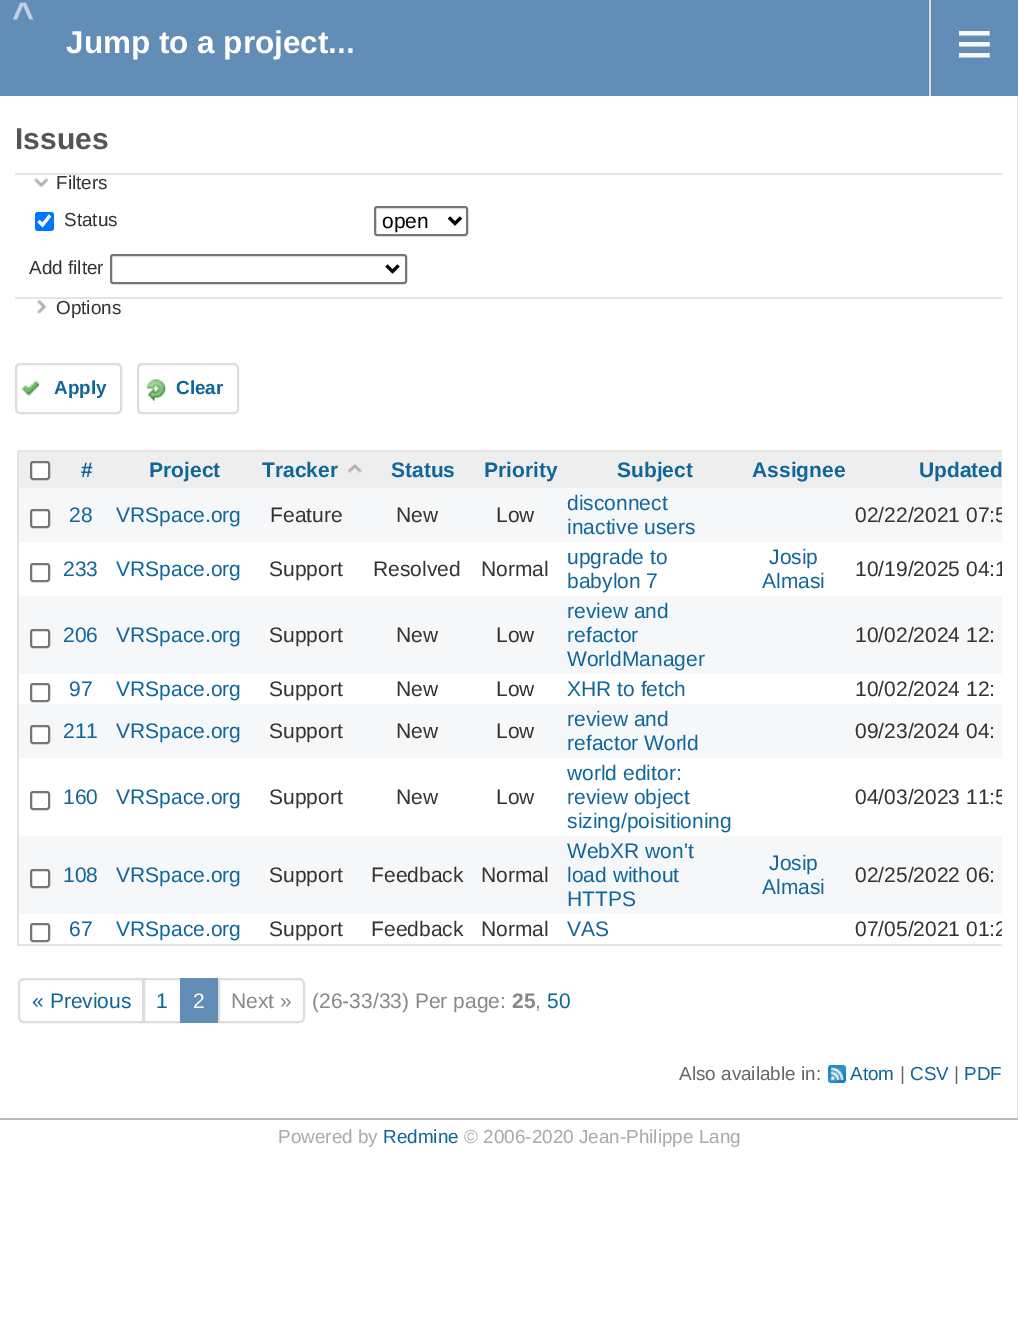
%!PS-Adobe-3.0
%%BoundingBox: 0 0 1018 1344
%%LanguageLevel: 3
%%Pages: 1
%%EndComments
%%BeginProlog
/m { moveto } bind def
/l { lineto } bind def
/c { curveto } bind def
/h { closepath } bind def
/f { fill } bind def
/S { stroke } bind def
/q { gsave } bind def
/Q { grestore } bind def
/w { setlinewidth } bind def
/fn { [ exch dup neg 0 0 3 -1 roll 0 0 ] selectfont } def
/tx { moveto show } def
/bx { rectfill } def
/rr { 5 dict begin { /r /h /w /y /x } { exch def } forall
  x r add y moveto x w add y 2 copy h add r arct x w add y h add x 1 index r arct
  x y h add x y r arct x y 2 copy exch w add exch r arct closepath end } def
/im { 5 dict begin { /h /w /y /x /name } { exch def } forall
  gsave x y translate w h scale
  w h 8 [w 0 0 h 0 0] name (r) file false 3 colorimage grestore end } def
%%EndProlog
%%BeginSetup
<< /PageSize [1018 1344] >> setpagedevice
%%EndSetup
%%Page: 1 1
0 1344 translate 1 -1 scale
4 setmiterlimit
1 setgray
0 0 1018 1344 bx
0.384 0.553 0.714 setrgbcolor
0 0 1018 96 bx
/LiberationSans-Bold 38 fn
0.753 0.82 0.886 setrgbcolor
12 29 m 6 0 (^) ashow
/LiberationSans-Bold 31.5 fn
1 setgray
(Jump to a project...) 66 53 tx
0.867 setgray
929 0 2 96 bx
/LiberationSans-Regular 63 fn
0.973 setgray
(≡) 956 65 tx
0.867 setgray
1017 96 1 1022 bx
/LiberationSans-Bold 30 fn
0.333 setgray
(Issues) 15 149 tx
0.894 setgray
15 173 987 2 bx
(image0.raw) 34 178 14 10 im
/LiberationSans-Regular 18.9 fn
0.2 setgray
(Filters) 56 189 tx
0 0.459 1 setrgbcolor
35 212 19 19 3 rr f
1 setgray
3.1 w
38.5 221 m 42.5 225 l 50 215.5 l S
0.2 setgray
(Status) 64 226 tx
0.463 setgray
2 w
375 207 92 28 2 rr S
0 setgray
3 w
449 217.5 m 455 223.5 l 461 217.5 l S
/LiberationSans-Regular 21 fn
(open) 382 228 tx
/LiberationSans-Regular 18.9 fn
0.2 setgray
(Add filter) 29 274 tx
0.463 setgray
2 w
111 255 295 28 2 rr S
0 setgray
3 w
386.5 265.5 m 392.5 271.5 l 398.5 265.5 l S
0.894 setgray
15 297 987 2 bx
(image1.raw) 37 300 10 14 im
0.2 setgray
(Options) 56 314 tx
(image2.raw) 22 380 17 16 im
0.867 setgray
2 w
16 364 105 49 4 rr S
/LiberationSans-Bold 18.9 fn
0.067 0.4 0.6 setrgbcolor
(Apply) 54 394 tx
(image3.raw) 146 379 20 22 im
0.867 setgray
138 364 100 49 4 rr S
0.067 0.4 0.6 setrgbcolor
(Clear) 176 394 tx
0.894 setgray
17 450 985 2 bx
17 944 985 2 bx
17 450 2 495 bx
0.933 setgray
19 452 983 36 bx
1 setgray
31 462 18 17 2 rr q f Q
0.463 setgray
S
/LiberationSans-Bold 21 fn
0.067 0.4 0.6 setrgbcolor
(#) 81 477 tx
(Project) 149 477 tx
(Tracker) 262 477 tx
(image4.raw) 348 463 14 10 im
(Status) 391 477 tx
(Priority) 484 477 tx
(Subject) 617 477 tx
(Assignee) 752 477 tx
(Updated) 919 477 tx
0.965 0.969 0.973 setrgbcolor
19 488 983 54 bx
1 setgray
31 510 18 17 2 rr q f Q
0.463 setgray
S
/LiberationSans-Regular 21 fn
0.067 0.4 0.6 setrgbcolor
(28) 69 522 tx
(VRSpace.org) 116 522 tx
0.2 setgray
(Feature) 270 522 tx
(New) 396 522 tx
(Low) 496 522 tx
0.067 0.4 0.6 setrgbcolor
(disconnect) 567 510 tx
(inactive users) 567 534 tx
q
15 449 987 504 rectclip
0.2 setgray
(02/22/2021 07:5) 855 522 tx
Q
0.463 setgray
31 564 18 17 2 rr S
0.067 0.4 0.6 setrgbcolor
(233) 63 576 tx
(VRSpace.org) 116 576 tx
0.2 setgray
(Support) 269 576 tx
(Resolved) 373 576 tx
(Normal) 481 576 tx
0.067 0.4 0.6 setrgbcolor
(upgrade to) 567 564 tx
(babylon 7) 567 588 tx
(Josip) 769 564 tx
(Almasi) 762 588 tx
q
15 449 987 504 rectclip
0.2 setgray
(10/19/2025 04:1) 855 576 tx
Q
0.965 0.969 0.973 setrgbcolor
19 596 983 78 bx
1 setgray
31 630 18 17 2 rr q f Q
0.463 setgray
S
0.067 0.4 0.6 setrgbcolor
(206) 63 642 tx
(VRSpace.org) 116 642 tx
0.2 setgray
(Support) 269 642 tx
(New) 396 642 tx
(Low) 496 642 tx
0.067 0.4 0.6 setrgbcolor
(review and) 567 618 tx
(refactor) 567 642 tx
(WorldManager) 567 666 tx
0.2 setgray
(10/02/2024 12:) 855 642 tx
0.463 setgray
31 684 18 17 2 rr S
0.067 0.4 0.6 setrgbcolor
(97) 69 696 tx
(VRSpace.org) 116 696 tx
0.2 setgray
(Support) 269 696 tx
(New) 396 696 tx
(Low) 496 696 tx
0.067 0.4 0.6 setrgbcolor
(XHR to fetch) 567 696 tx
0.2 setgray
(10/02/2024 12:) 855 696 tx
0.965 0.969 0.973 setrgbcolor
19 704 983 54 bx
1 setgray
31 726 18 17 2 rr q f Q
0.463 setgray
S
0.067 0.4 0.6 setrgbcolor
(211) 63 738 tx
(VRSpace.org) 116 738 tx
0.2 setgray
(Support) 269 738 tx
(New) 396 738 tx
(Low) 496 738 tx
0.067 0.4 0.6 setrgbcolor
(review and) 567 726 tx
(refactor World) 567 750 tx
0.2 setgray
(09/23/2024 04:) 855 738 tx
0.463 setgray
31 792 18 17 2 rr S
0.067 0.4 0.6 setrgbcolor
(160) 63 804 tx
(VRSpace.org) 116 804 tx
0.2 setgray
(Support) 269 804 tx
(New) 396 804 tx
(Low) 496 804 tx
0.067 0.4 0.6 setrgbcolor
(world editor:) 567 780 tx
(review object) 567 804 tx
(sizing/poisitioning) 567 828 tx
q
15 449 987 504 rectclip
0.2 setgray
(04/03/2023 11:5) 855 804 tx
Q
0.965 0.969 0.973 setrgbcolor
19 836 983 78 bx
1 setgray
31 870 18 17 2 rr q f Q
0.463 setgray
S
0.067 0.4 0.6 setrgbcolor
(108) 63 882 tx
(VRSpace.org) 116 882 tx
0.2 setgray
(Support) 269 882 tx
(Feedback) 371 882 tx
(Normal) 481 882 tx
0.067 0.4 0.6 setrgbcolor
(WebXR won't) 567 858 tx
(load without) 567 882 tx
(HTTPS) 567 906 tx
(Josip) 769 870 tx
(Almasi) 762 894 tx
0.2 setgray
(02/25/2022 06:) 855 882 tx
0.463 setgray
31 924 18 17 2 rr S
0.067 0.4 0.6 setrgbcolor
(67) 69 936 tx
(VRSpace.org) 116 936 tx
0.2 setgray
(Support) 269 936 tx
(Feedback) 371 936 tx
(Normal) 481 936 tx
0.067 0.4 0.6 setrgbcolor
(VAS) 567 936 tx
q
15 449 987 504 rectclip
0.2 setgray
(07/05/2021 01:2) 855 936 tx
Q
0.867 setgray
24 979 m 143 979 l 143 1022 l 24 1022 l 21 1022 19 1020 19 1017 c 19 984 l 19 981 21 979 24 979 c h S
0.067 0.4 0.6 setrgbcolor
(« Previous) 32 1008 tx
0.867 setgray
144 979 37 43 rectstroke
0.067 0.4 0.6 setrgbcolor
(1) 156 1008 tx
0.384 0.553 0.714 setrgbcolor
180 978 38 45 bx
1 setgray
(2) 193 1008 tx
0.867 setgray
219 979 m 299 979 l 302 979 304 981 304 984 c 304 1017 l 304 1020 302 1022 299 1022 c 219 1022 l h S
0.533 setgray
(Next ») 231 1008 tx
(\(26-33/33\) Per page:) 312 1008 tx
/LiberationSans-Bold 21 fn
(25) 512 1008 tx
/LiberationSans-Regular 21 fn
(,) 535 1008 tx
0.067 0.4 0.6 setrgbcolor
(50) 547 1008 tx
/LiberationSans-Regular 18.9 fn
0.4 setgray
(Also available in:) 679 1080 tx
(image5.raw) 828 1065 18 18 im
0.067 0.4 0.6 setrgbcolor
(Atom) 850 1080 tx
0.4 setgray
(|) 900 1080 tx
0.067 0.4 0.6 setrgbcolor
(CSV) 910 1080 tx
0.4 setgray
(|) 954 1080 tx
0.067 0.4 0.6 setrgbcolor
(PDF) 964 1080 tx
0.733 setgray
0 1118 1018 2 bx
0.667 setgray
(Powered by) 278 1143 tx
0.067 0.4 0.6 setrgbcolor
(Redmine) 383 1143 tx
0.667 setgray
(© 2006-2020 Jean-Philippe Lang) 464 1143 tx
showpage
%%EOF
